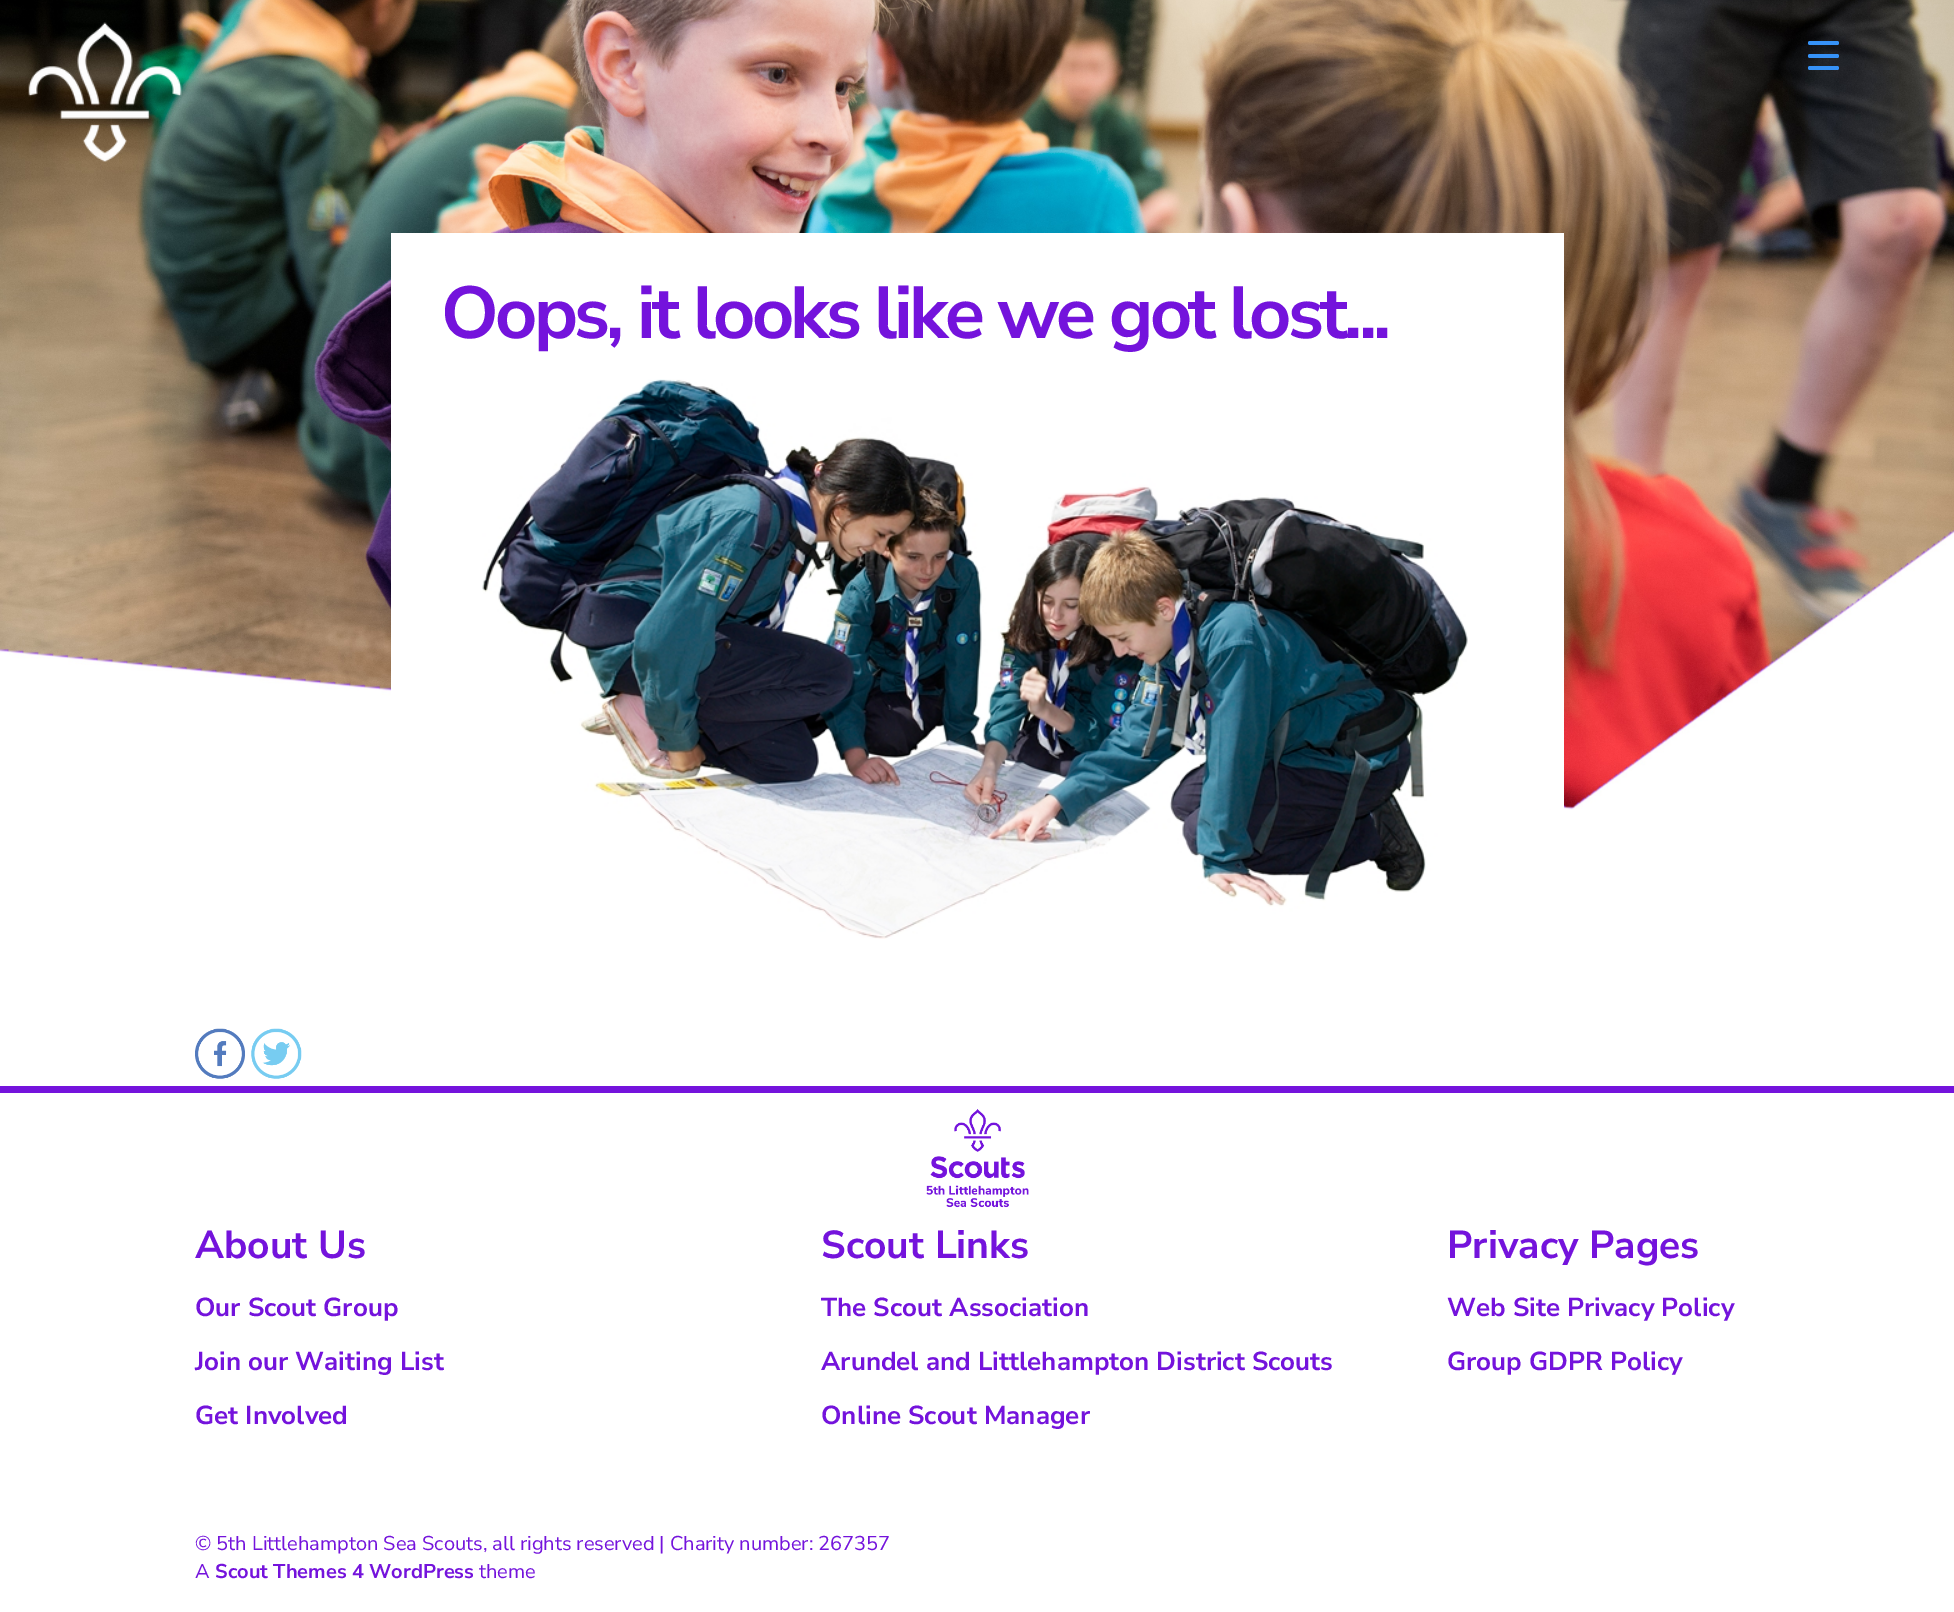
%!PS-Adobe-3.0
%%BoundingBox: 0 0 1954 1612
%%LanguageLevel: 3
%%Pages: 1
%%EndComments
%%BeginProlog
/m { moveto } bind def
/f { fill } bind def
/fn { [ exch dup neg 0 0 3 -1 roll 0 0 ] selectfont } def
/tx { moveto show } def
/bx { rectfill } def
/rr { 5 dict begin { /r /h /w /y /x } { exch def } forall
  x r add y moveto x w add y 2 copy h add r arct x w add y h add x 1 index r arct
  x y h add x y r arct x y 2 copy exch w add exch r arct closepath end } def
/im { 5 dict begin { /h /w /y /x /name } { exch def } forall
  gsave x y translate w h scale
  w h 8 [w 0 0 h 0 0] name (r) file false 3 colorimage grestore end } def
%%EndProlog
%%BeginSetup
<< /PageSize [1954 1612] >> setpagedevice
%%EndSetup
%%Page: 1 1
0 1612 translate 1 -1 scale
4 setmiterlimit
1 setgray
0 0 1954 1612 bx
(image0.raw) 0 0 1954 810 im
(image1.raw) 28 22 154 140 im
391 233 1173 576 bx
/NunitoSans-Bold 73.5 fn
0.455 0.075 0.863 setrgbcolor
441 338 m -3.65 0 (Oops, it looks like we got lost...) ashow
(image2.raw) 482 379 986 560 im
(image3.raw) 195 1028 50 51 im
(image4.raw) 251 1028 51 51 im
(image5.raw) 926 1109 103 99 im
0 1086 1954 7 bx
0.212 0.573 0.969 setrgbcolor
1808 54 31 4 2 rr f
1808 41 31 4 2 rr f
1808 66 31 4 2 rr f
/NunitoSans-Bold 39 fn
0.455 0.075 0.863 setrgbcolor
(About Us) 195 1258 tx
/NunitoSans-Bold 26 fn
(Our Scout Group) 195 1316 tx
(Join our Waiting List) 195 1370 tx
(Get Involved) 195 1424 tx
/NunitoSans-Bold 39 fn
(Scout Links) 821 1258 tx
/NunitoSans-Bold 26 fn
(The Scout Association) 821 1316 tx
(Arundel and Littlehampton District Scouts) 821 1370 tx
(Online Scout Manager) 821 1424 tx
/NunitoSans-Bold 39 fn
(Privacy Pages) 1447 1258 tx
/NunitoSans-Bold 26 fn
(Web Site Privacy Policy) 1447 1316 tx
(Group GDPR Policy) 1447 1370 tx
/NunitoSans-Regular 20 fn
(© 5th Littlehampton Sea Scouts, all rights reserved | Charity number: 267357) 195 1550 tx
(A) 195 1578 tx
/NunitoSans-Bold 20 fn
(Scout Themes 4 WordPress) 215 1578 tx
/NunitoSans-Regular 20 fn
(theme) 479 1578 tx
showpage
%%EOF
